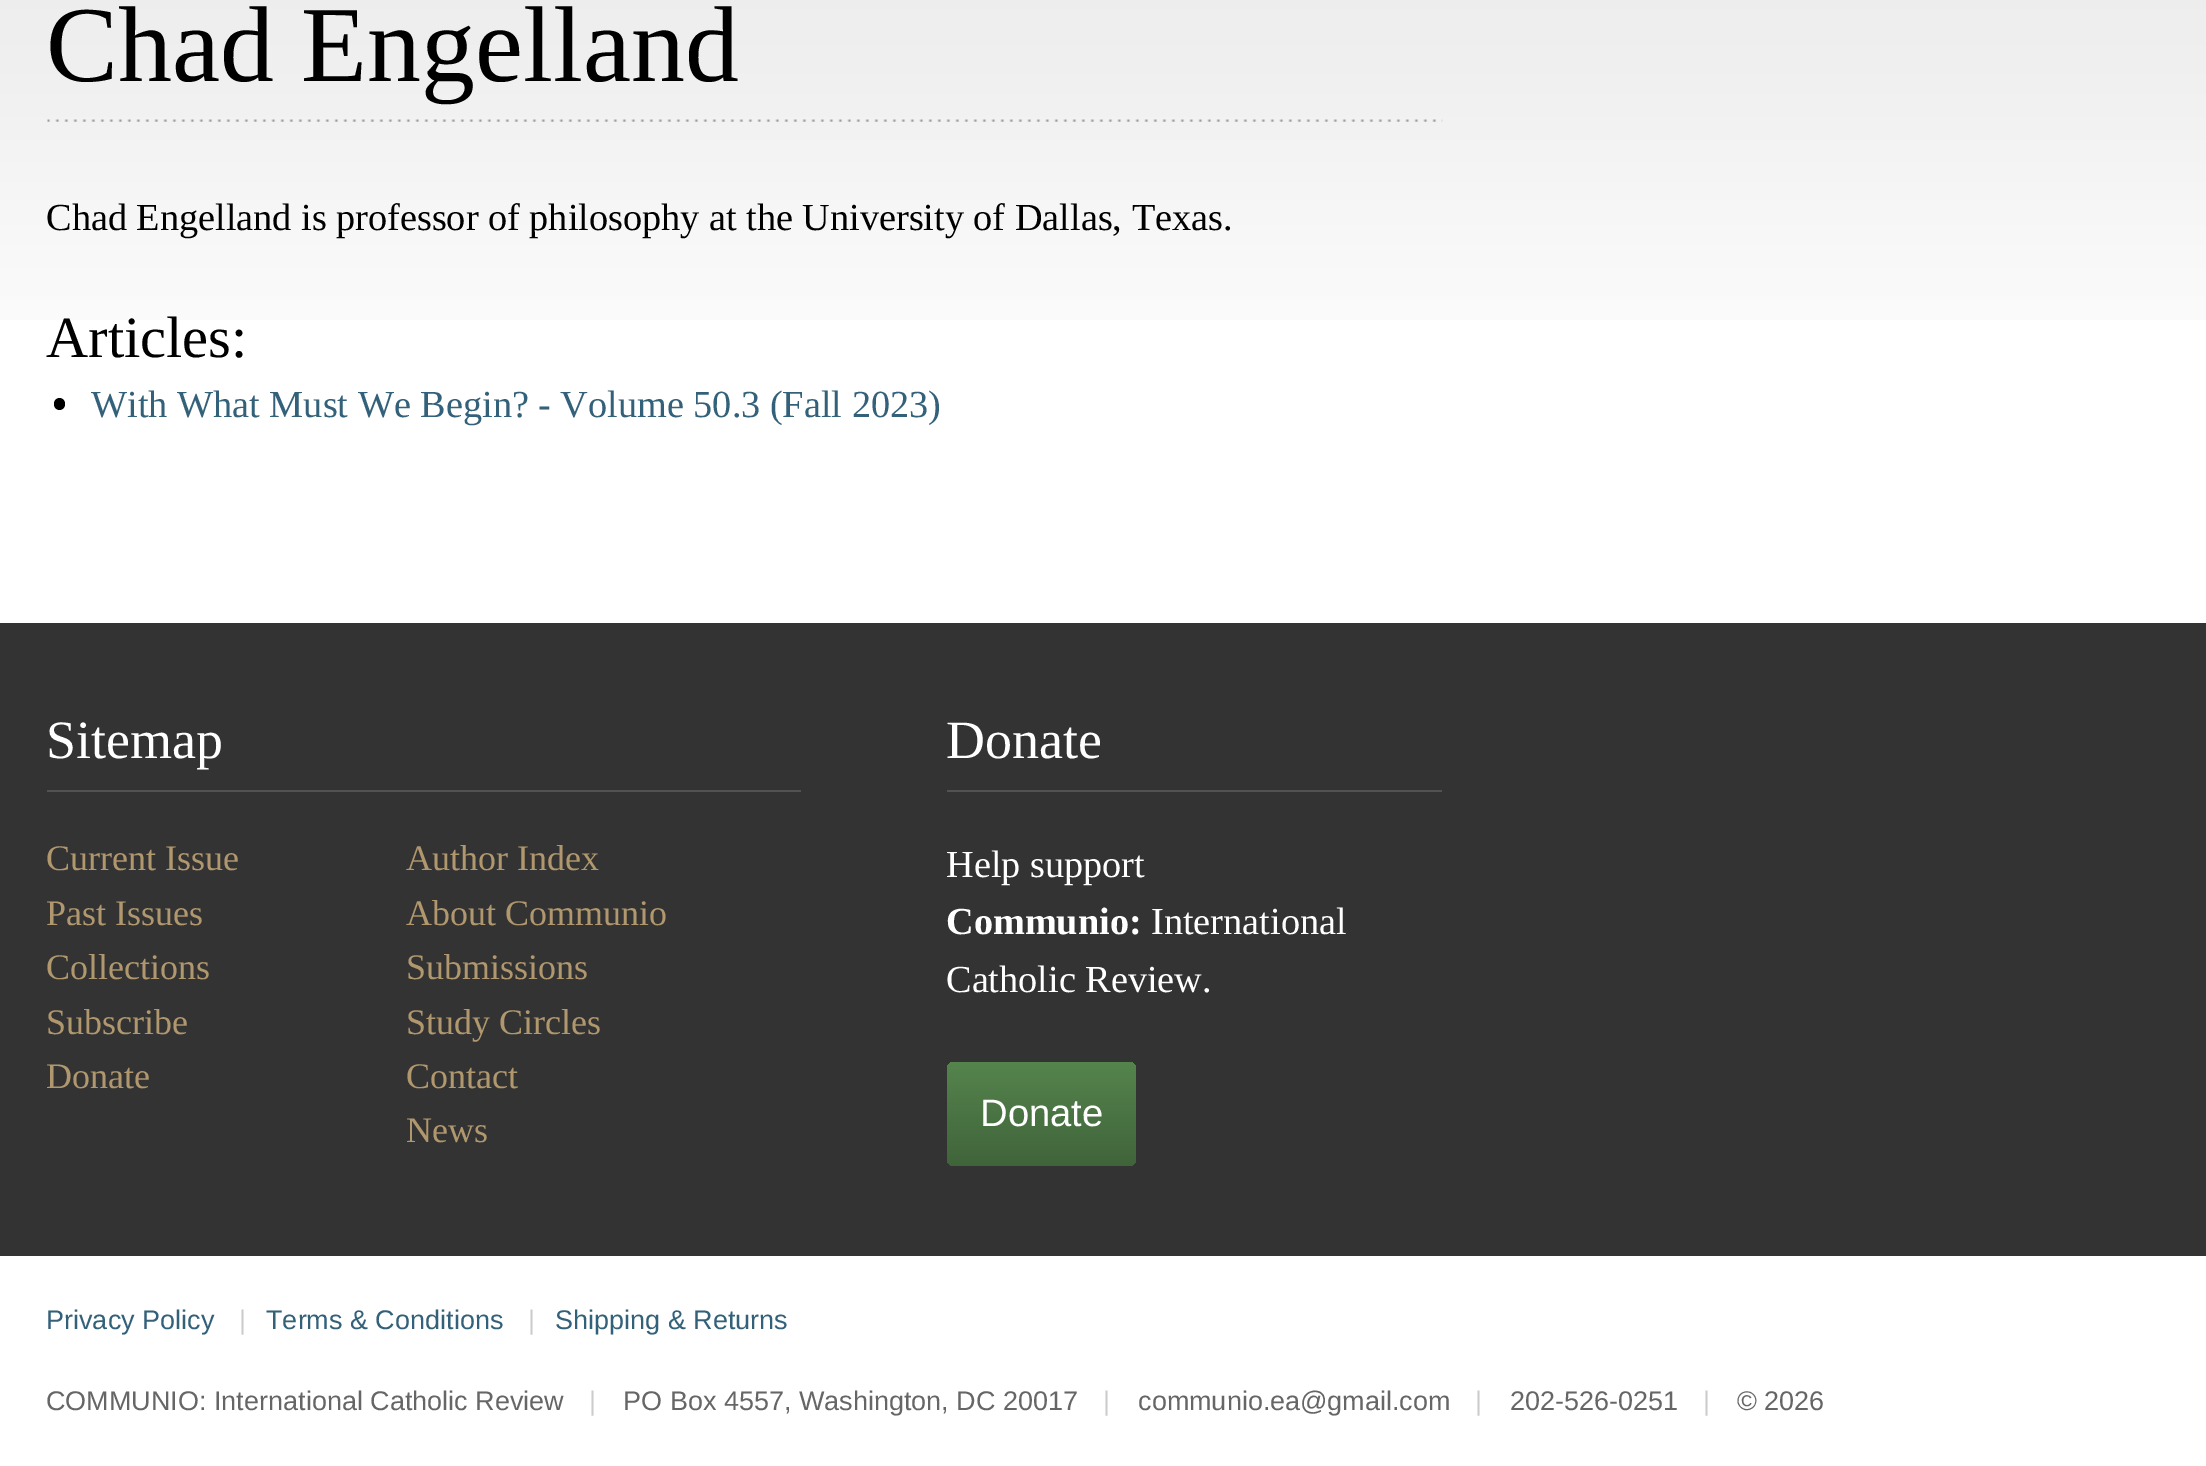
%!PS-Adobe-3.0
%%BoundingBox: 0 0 2206 1466
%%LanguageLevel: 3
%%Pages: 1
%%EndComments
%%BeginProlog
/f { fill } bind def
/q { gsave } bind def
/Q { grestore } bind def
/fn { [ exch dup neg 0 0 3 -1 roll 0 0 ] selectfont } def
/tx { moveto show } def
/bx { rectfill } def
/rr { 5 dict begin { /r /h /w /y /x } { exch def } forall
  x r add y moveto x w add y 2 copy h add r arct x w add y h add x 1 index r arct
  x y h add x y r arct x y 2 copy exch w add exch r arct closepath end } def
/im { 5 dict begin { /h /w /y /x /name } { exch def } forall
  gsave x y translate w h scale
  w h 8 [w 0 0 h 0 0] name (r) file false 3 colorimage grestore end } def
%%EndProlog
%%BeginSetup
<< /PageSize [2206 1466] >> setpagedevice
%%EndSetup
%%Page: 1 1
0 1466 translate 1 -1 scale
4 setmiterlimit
1 setgray
0 0 2206 1466 bx
(image0.raw) 0 0 2206 320 im
(image1.raw) 47 119 1396 3 im
/LiberationSerif-Regular 108 fn
0 setgray
(Chad Engelland) 46 81 tx
/LiberationSerif-Regular 38.25 fn
(Chad Engelland is professor of philosophy at the University of Dallas, Texas.) 46 230 tx
/LiberationSerif-Regular 58.5 fn
(Articles:) 46 357 tx
54 398 11 12 5.5 rr f
/LiberationSerif-Regular 38.25 fn
0.2 0.38 0.478 setrgbcolor
(With What Must We Begin? - Volume 50.3 \(Fall 2023\)) 91 417 tx
0.2 setgray
0 623 2206 633 bx
0.322 setgray
47 790 754 2 bx
/LiberationSerif-Regular 54 fn
1 setgray
(Sitemap) 46 758 tx
/LiberationSerif-Regular 36 fn
0.69 0.592 0.427 setrgbcolor
(Current Issue) 46 870 tx
(Past Issues) 46 925 tx
(Collections) 46 979 tx
(Subscribe) 46 1034 tx
(Donate) 46 1088 tx
(Author Index) 406 870 tx
(About Communio) 406 925 tx
(Submissions) 406 979 tx
(Study Circles) 406 1034 tx
(Contact) 406 1088 tx
(News) 406 1142 tx
0.322 setgray
947 790 495 2 bx
/LiberationSerif-Regular 54 fn
1 setgray
(Donate) 946 758 tx
/LiberationSerif-Regular 38.25 fn
(Help support) 946 877 tx
/LiberationSerif-Bold 38.25 fn
(Communio:) 946 934 tx
/LiberationSerif-Regular 38.25 fn
(International) 1151 934 tx
(Catholic Review.) 946 992 tx
q 947 1062 189 104 7 rr clip newpath
<< /ShadingType 2 /ColorSpace /DeviceRGB /Coords [1042 1062 1042 1166] /Extend [true true] /Function << /FunctionType 2 /Domain [0 1] /C0 [0.333 0.518 0.302] /C1 [0.251 0.392 0.227] /N 1 >> >> shfill Q
/LiberationSans-Regular 38.25 fn
(Donate) 980 1126 tx
/LiberationSans-Regular 27 fn
0.2 0.38 0.478 setrgbcolor
(Privacy Policy) 46 1329 tx
0.8 setgray
(|) 239 1329 tx
0.2 0.38 0.478 setrgbcolor
(Terms & Conditions) 266 1329 tx
0.8 setgray
(|) 528 1329 tx
0.2 0.38 0.478 setrgbcolor
(Shipping & Returns) 555 1329 tx
0.4 setgray
(COMMUNIO: International Catholic Review) 46 1410 tx
0.8 setgray
(|) 589 1410 tx
0.4 setgray
(PO Box 4557, Washington, DC 20017) 623 1410 tx
0.8 setgray
(|) 1103 1410 tx
0.4 setgray
(communio.ea@gmail.com) 1138 1410 tx
0.8 setgray
(|) 1475 1410 tx
0.4 setgray
(202-526-0251) 1510 1410 tx
0.8 setgray
(|) 1703 1410 tx
0.4 setgray
(© 2026) 1737 1410 tx
showpage
%%EOF
